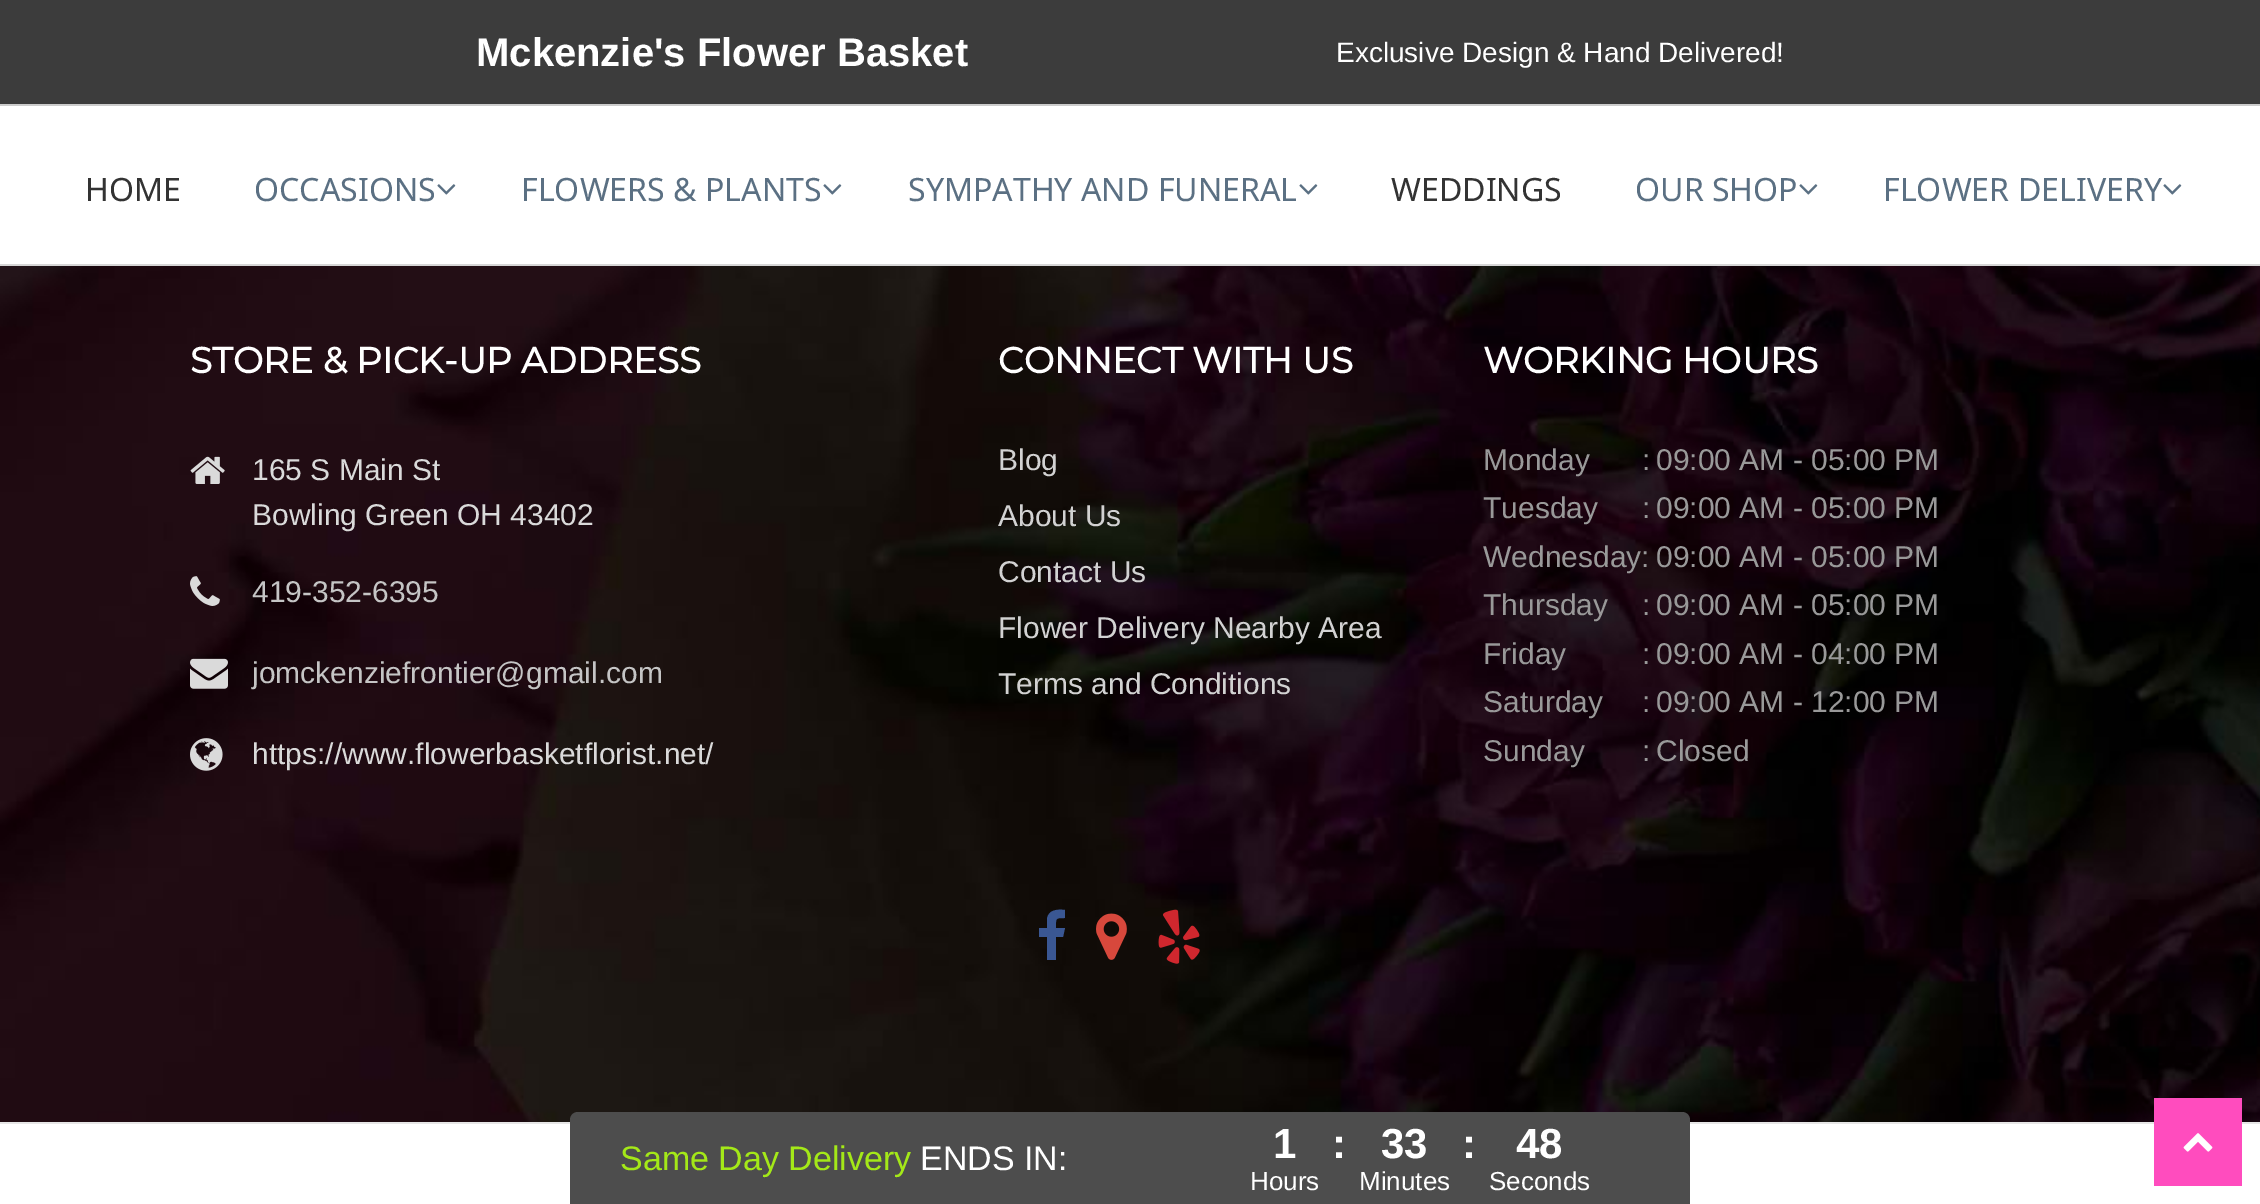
%!PS-Adobe-3.0
%%BoundingBox: 0 0 2260 1204
%%LanguageLevel: 3
%%Pages: 1
%%EndComments
%%BeginProlog
/m { moveto } bind def
/l { lineto } bind def
/c { curveto } bind def
/h { closepath } bind def
/f { fill } bind def
/fn { [ exch dup neg 0 0 3 -1 roll 0 0 ] selectfont } def
/tx { moveto show } def
/bx { rectfill } def
/im { 5 dict begin { /h /w /y /x /name } { exch def } forall
  gsave x y translate w h scale
  w h 8 [w 0 0 h 0 0] name (r) file false 3 colorimage grestore end } def
%%EndProlog
%%BeginSetup
<< /PageSize [2260 1204] >> setpagedevice
%%EndSetup
%%Page: 1 1
0 1204 translate 1 -1 scale
4 setmiterlimit
1 setgray
0 0 2260 1204 bx
0.839 setgray
0 264 2260 2 bx
0.235 setgray
0 0 2260 104 bx
0.8 setgray
0 104 2260 2 bx
/LiberationSans-Bold 40 fn
1 setgray
(Mckenzie's Flower Basket) 476 66 tx
/LiberationSans-Regular 28 fn
(Exclusive Design & Hand Delivered!) 1336 62 tx
/NotoSans-Regular 32.1 fn
0.2 setgray
(HOME) 85 201 tx
0.357 0.439 0.514 setrgbcolor
(OCCASIONS) 254 201 tx
(image0.raw) 437 184 19 11 im
(FLOWERS & PLANTS) 521 201 tx
(image0.raw) 823 184 19 11 im
(SYMPATHY AND FUNERAL) 908 201 tx
(image0.raw) 1299 184 19 11 im
0.2 setgray
(WEDDINGS) 1391 201 tx
0.357 0.439 0.514 setrgbcolor
(OUR SHOP) 1635 201 tx
(image0.raw) 1799 184 19 11 im
(FLOWER DELIVERY) 1883 201 tx
(image0.raw) 2163 184 19 11 im
(image1.raw) 0 266 2260 856 im
/Montserrat-Bold 36 fn
1 setgray
(STORE & PICK-UP ADDRESS) 190 373 tx
(image2.raw) 190 456 35 28 im
/LiberationSans-Regular 30 fn
0.855 setgray
(165 S Main St) 252 480 tx
(Bowling Green OH 43402) 252 525 tx
(image3.raw) 190 576 30 30 im
0.773 setgray
(419-352-6395) 252 602 tx
(image4.raw) 190 658 38 31 im
(jomckenziefrontier@gmail.com) 252 683 tx
(image5.raw) 190 738 33 33 im
0.855 setgray
(https://www.flowerbasketflorist.net/) 252 764 tx
/Montserrat-Bold 36 fn
1 setgray
(CONNECT WITH US) 998 373 tx
/LiberationSans-Regular 30 fn
0.824 setgray
(Blog) 998 470 tx
(About Us) 998 526 tx
(Contact Us) 998 582 tx
(Flower Delivery Nearby Area) 998 638 tx
(Terms and Conditions) 998 694 tx
/Montserrat-Bold 36 fn
1 setgray
(WORKING HOURS) 1483 373 tx
/LiberationSans-Regular 30 fn
0.6 setgray
(Monday) 1483 470 tx
(:) 1642 470 tx
(09:00 AM - 05:00 PM) 1656 470 tx
(Tuesday) 1483 518 tx
(:) 1642 518 tx
(09:00 AM - 05:00 PM) 1656 518 tx
(Wednesday:) 1483 567 tx
(09:00 AM - 05:00 PM) 1656 567 tx
(Thursday) 1483 615 tx
(:) 1642 615 tx
(09:00 AM - 05:00 PM) 1656 615 tx
(Friday) 1483 664 tx
(:) 1642 664 tx
(09:00 AM - 04:00 PM) 1656 664 tx
(Saturday) 1483 712 tx
(:) 1642 712 tx
(09:00 AM - 12:00 PM) 1656 712 tx
(Sunday) 1483 761 tx
(:) 1642 761 tx
(Closed) 1656 761 tx
0.227 0.341 0.576 setrgbcolor
1065 910 m 1065 918 l 1055 918 1056 918 1056 928 c 1065 928 l 1063 937 l 1056 937 l 1056 960 l 1047 960 l 1047 937 l 1039 937 l 1039 928 l 1047 928 l 1047 919 l 1048 910 1057 909 1065 910 c h f
(image6.raw) 1096 913 31 47 im
(image7.raw) 1158 909 42 55 im
0.902 setgray
0 1122 2260 2 bx
0.302 setgray
578 1112 m 1682 1112 l 1686.5 1112 1690 1115.5 1690 1120 c 1690 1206 l 570 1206 l 570 1120 l 570 1115.5 573.5 1112 578 1112 c h f
/LiberationSans-Regular 34 fn
0.643 0.91 0.094 setrgbcolor
(Same Day Delivery) 620 1170 tx
1 setgray
(ENDS IN:) 920 1170 tx
/LiberationSans-Bold 42 fn
(1) 1273 1158 tx
/LiberationSans-Regular 26 fn
(Hours) 1250 1190 tx
/LiberationSans-Bold 42 fn
(:) 1332 1158 tx
(33) 1381 1158 tx
/LiberationSans-Regular 26 fn
(Minutes) 1359 1190 tx
/LiberationSans-Bold 42 fn
(:) 1462 1158 tx
(48) 1516 1158 tx
/LiberationSans-Regular 26 fn
(Seconds) 1489 1190 tx
1 0.298 0.745 setrgbcolor
2154 1098 88 88 bx
(image8.raw) 2183 1133 30 19 im
showpage
%%EOF
